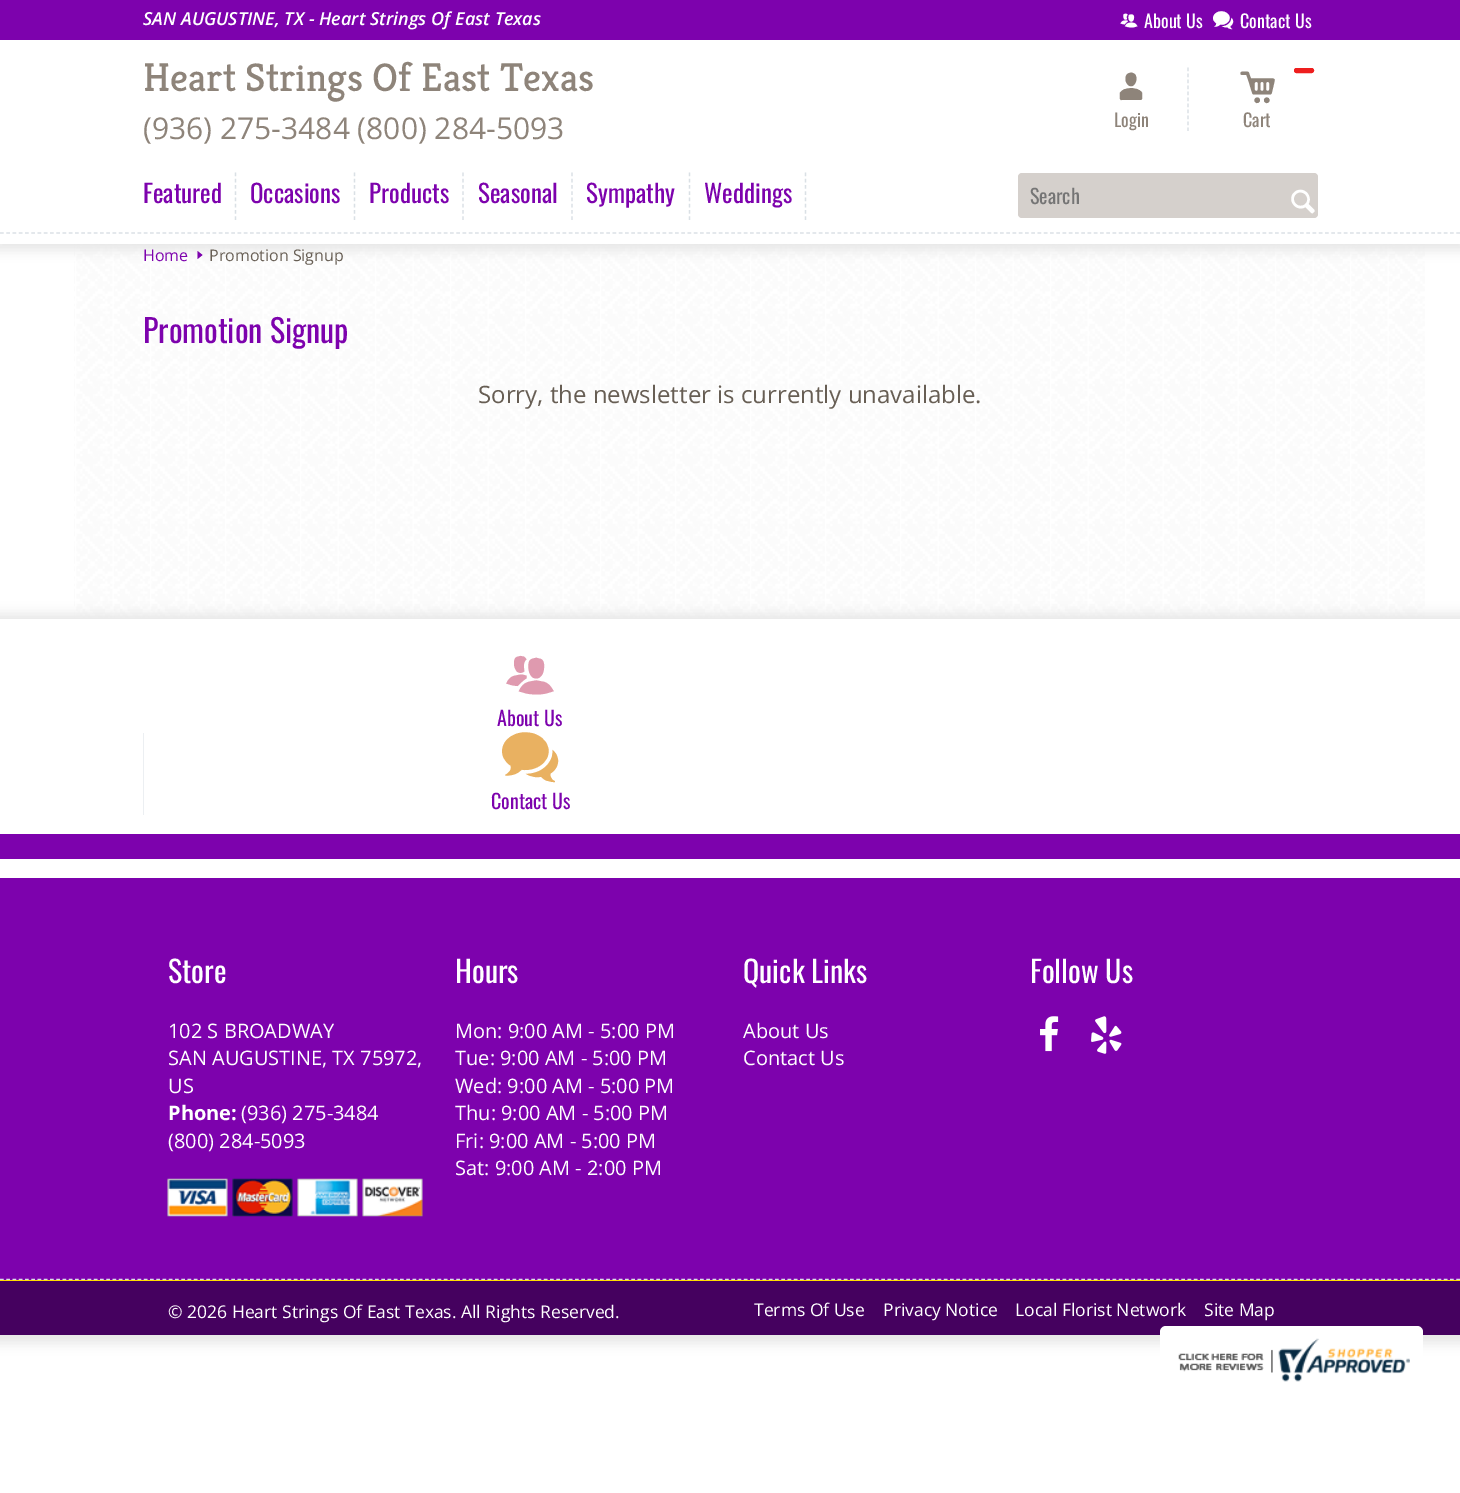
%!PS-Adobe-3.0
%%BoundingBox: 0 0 1460 1493
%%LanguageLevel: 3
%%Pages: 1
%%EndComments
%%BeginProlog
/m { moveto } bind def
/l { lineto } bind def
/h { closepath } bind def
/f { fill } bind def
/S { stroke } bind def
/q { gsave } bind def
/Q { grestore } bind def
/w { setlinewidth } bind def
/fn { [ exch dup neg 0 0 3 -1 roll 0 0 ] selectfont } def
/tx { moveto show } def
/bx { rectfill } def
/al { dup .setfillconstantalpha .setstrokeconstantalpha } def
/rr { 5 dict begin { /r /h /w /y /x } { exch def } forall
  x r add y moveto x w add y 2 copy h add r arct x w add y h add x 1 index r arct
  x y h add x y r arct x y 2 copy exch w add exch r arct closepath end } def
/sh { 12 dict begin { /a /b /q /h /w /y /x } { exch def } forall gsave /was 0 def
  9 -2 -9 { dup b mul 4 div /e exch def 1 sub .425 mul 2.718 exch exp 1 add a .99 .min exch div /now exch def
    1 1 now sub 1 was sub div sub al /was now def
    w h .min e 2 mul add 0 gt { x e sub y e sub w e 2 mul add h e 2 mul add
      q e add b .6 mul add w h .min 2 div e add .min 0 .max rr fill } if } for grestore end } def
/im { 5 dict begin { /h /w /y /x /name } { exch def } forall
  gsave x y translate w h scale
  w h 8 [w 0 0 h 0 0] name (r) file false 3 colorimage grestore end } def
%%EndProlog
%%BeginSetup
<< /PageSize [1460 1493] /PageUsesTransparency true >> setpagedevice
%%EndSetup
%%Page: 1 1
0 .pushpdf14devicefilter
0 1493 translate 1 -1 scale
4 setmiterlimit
1 setgray
0 0 1460 1493 bx
(image0.raw) 74 244 1351 374 im
q
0 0 m 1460 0 l 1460 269 l 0 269 l h 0 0 m 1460 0 l 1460 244 l 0 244 l h eoclip newpath
0.902 setgray
-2 1 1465 249 0 6 1 sh
Q
0.855 0.878 0.898 setrgbcolor
1.2 w
[3.75 2.5] 0 setdash
0 233 m 1460 233 l S
0.49 0.008 0.678 setrgbcolor
0 0 1460 40 bx
/OpenSans-SemiBoldItalic 18 fn
1 setgray
(SAN AUGUSTINE, TX - Heart Strings Of East Texas) 143 25 tx
/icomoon-Regular 18 fn
(\)) 1120 28 tx
/Oswald-Regular 18 fn
(About Us) 1144 28 tx
/icomoon-Regular 18 fn
(6) 1213 28 tx
/Oswald-Regular 18 fn
(Contact Us) 1240 28 tx
/Kreon-Light 40 fn
0.557 0.518 0.478 setrgbcolor
(Heart Strings Of East Texas) 143 91 tx
/OpenSans-Regular 30 fn
(\(936\) 275-3484 \(800\) 284-5093) 143 139 tx
0.855 0.878 0.898 setrgbcolor
[3.75 2.25] 0 setdash
1188 67.5 m 1188 131 l S
/icomoon-Regular 38 fn
0.557 0.518 0.478 setrgbcolor
(&) 1113 103 tx
/Oswald-Regular 18 fn
(Login) 1114 127 tx
0.933 0.118 0.118 setrgbcolor
1294.5 68.5 19 4 2 rr q f Q
1 w
[] 0 setdash
S
/icomoon-Regular 38 fn
0.557 0.518 0.478 setrgbcolor
(#) 1238 103 tx
/Oswald-Regular 18 fn
(Cart) 1243 127 tx
0.855 0.878 0.898 setrgbcolor
1.2 w
[3.75 2.5] 0 setdash
235.5 172.5 m 235.5 220 l S
/Oswald-Regular 25 fn
0.49 0.008 0.678 setrgbcolor
(Featured) 143 203 tx
0.855 0.878 0.898 setrgbcolor
354.5 172.5 m 354.5 220 l S
0.49 0.008 0.678 setrgbcolor
(Occasions) 250 203 tx
0.855 0.878 0.898 setrgbcolor
463 172.5 m 463 220 l S
0.49 0.008 0.678 setrgbcolor
(Products) 369 203 tx
0.855 0.878 0.898 setrgbcolor
572 172.5 m 572 220 l S
0.49 0.008 0.678 setrgbcolor
(Seasonal) 478 203 tx
0.855 0.878 0.898 setrgbcolor
689.5 172.5 m 689.5 220 l S
0.49 0.008 0.678 setrgbcolor
(Sympathy) 586 203 tx
0.855 0.878 0.898 setrgbcolor
805.5 172.5 m 805.5 220 l S
0.49 0.008 0.678 setrgbcolor
(Weddings) 704 203 tx
0.835 0.816 0.8 setrgbcolor
1018 173 300 45 4 rr f
/Oswald-Regular 20 fn
0.459 setgray
(Search) 1030 204 tx
/icomoon-Regular 30 fn
1 setgray
(=) 1288 215 tx
/OpenSans-Regular 16 fn
0.49 0.008 0.678 setrgbcolor
(Home) 143 261 tx
197.5 259 m 197.5 251 l 202.5 255 l h f
0.404 0.369 0.329 setrgbcolor
(Promotion Signup) 209 261 tx
/Oswald-Regular 32 fn
0.49 0.008 0.678 setrgbcolor
(Promotion Signup) 143 343 tx
/OpenSans-Regular 24 fn
0.404 0.369 0.329 setrgbcolor
(Sorry, the newsletter is currently unavailable.) 478 403 tx
q
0 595 m 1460 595 l 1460 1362 l 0 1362 l h 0 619 m 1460 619 l 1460 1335 l 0 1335 l h eoclip newpath
0.902 setgray
-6 614 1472 729 0 6 1 sh
Q
/icomoon-Regular 50 fn
0.875 0.604 0.686 setrgbcolor
(\)) 505 696 tx
/Oswald-Regular 20 fn
0.49 0.008 0.678 setrgbcolor
(About Us) 497 726 tx
0.925 0.937 0.949 setrgbcolor
143 733 1 82 bx
/icomoon-Regular 50 fn
0.914 0.694 0.38 setrgbcolor
(6) 502 779 tx
/Oswald-Regular 20 fn
0.49 0.008 0.678 setrgbcolor
(Contact Us) 491 809 tx
0 834 1460 25 bx
0 878 1460 457 bx
/Oswald-Regular 30 fn
1 setgray
(Store) 168 983 tx
/OpenSans-Regular 20 fn
(102 S BROADWAY) 168 1038 tx
(SAN AUGUSTINE, TX 75972,) 168 1065 tx
(US) 168 1093 tx
/OpenSans-Bold 20 fn
(Phone:) 168 1120 tx
/OpenSans-Regular 20 fn
(\(936\) 275-3484) 241 1120 tx
(\(800\) 284-5093) 168 1148 tx
(image1.raw) 167 1178 61 39 im
(image2.raw) 232 1178 61 39 im
(image3.raw) 297 1178 61 39 im
(image4.raw) 362 1178 61 39 im
/Oswald-Regular 30 fn
(Hours) 455 983 tx
/OpenSans-Regular 20 fn
(Mon: 9:00 AM - 5:00 PM) 455 1038 tx
(Tue: 9:00 AM - 5:00 PM) 455 1065 tx
(Wed: 9:00 AM - 5:00 PM) 455 1093 tx
(Thu: 9:00 AM - 5:00 PM) 455 1120 tx
(Fri: 9:00 AM - 5:00 PM) 455 1148 tx
(Sat: 9:00 AM - 2:00 PM) 455 1175 tx
/Oswald-Regular 30 fn
(Quick Links) 743 983 tx
/OpenSans-Regular 20 fn
(About Us) 743 1038 tx
(Contact Us) 743 1065 tx
/Oswald-Regular 30 fn
(Follow Us) 1030 983 tx
(image5.raw) 1040 1016 19 36 im
(image6.raw) 1091 1016 31 38 im
0.45 al
0 setgray
0 1281 1460 54 bx
1 al
1 setgray
1160 1326 263 68 6 rr f
(image7.raw) 1178 1338 232 44 im
0.855 0.875 0.898 setrgbcolor
0 1279.5 m 1460 1279.5 l S
1 0.867 0 setrgbcolor
0 1280 1460 1 bx
/OpenSans-Regular 17.5 fn
1 setgray
(© 2026 Heart Strings Of East Texas. All Rights Reserved.) 168 1318 tx
(Terms Of Use) 754 1316 tx
(Privacy Notice) 883 1316 tx
(Local Florist Network) 1015 1316 tx
(Site Map) 1204 1316 tx
.poppdf14devicefilter showpage
%%EOF
